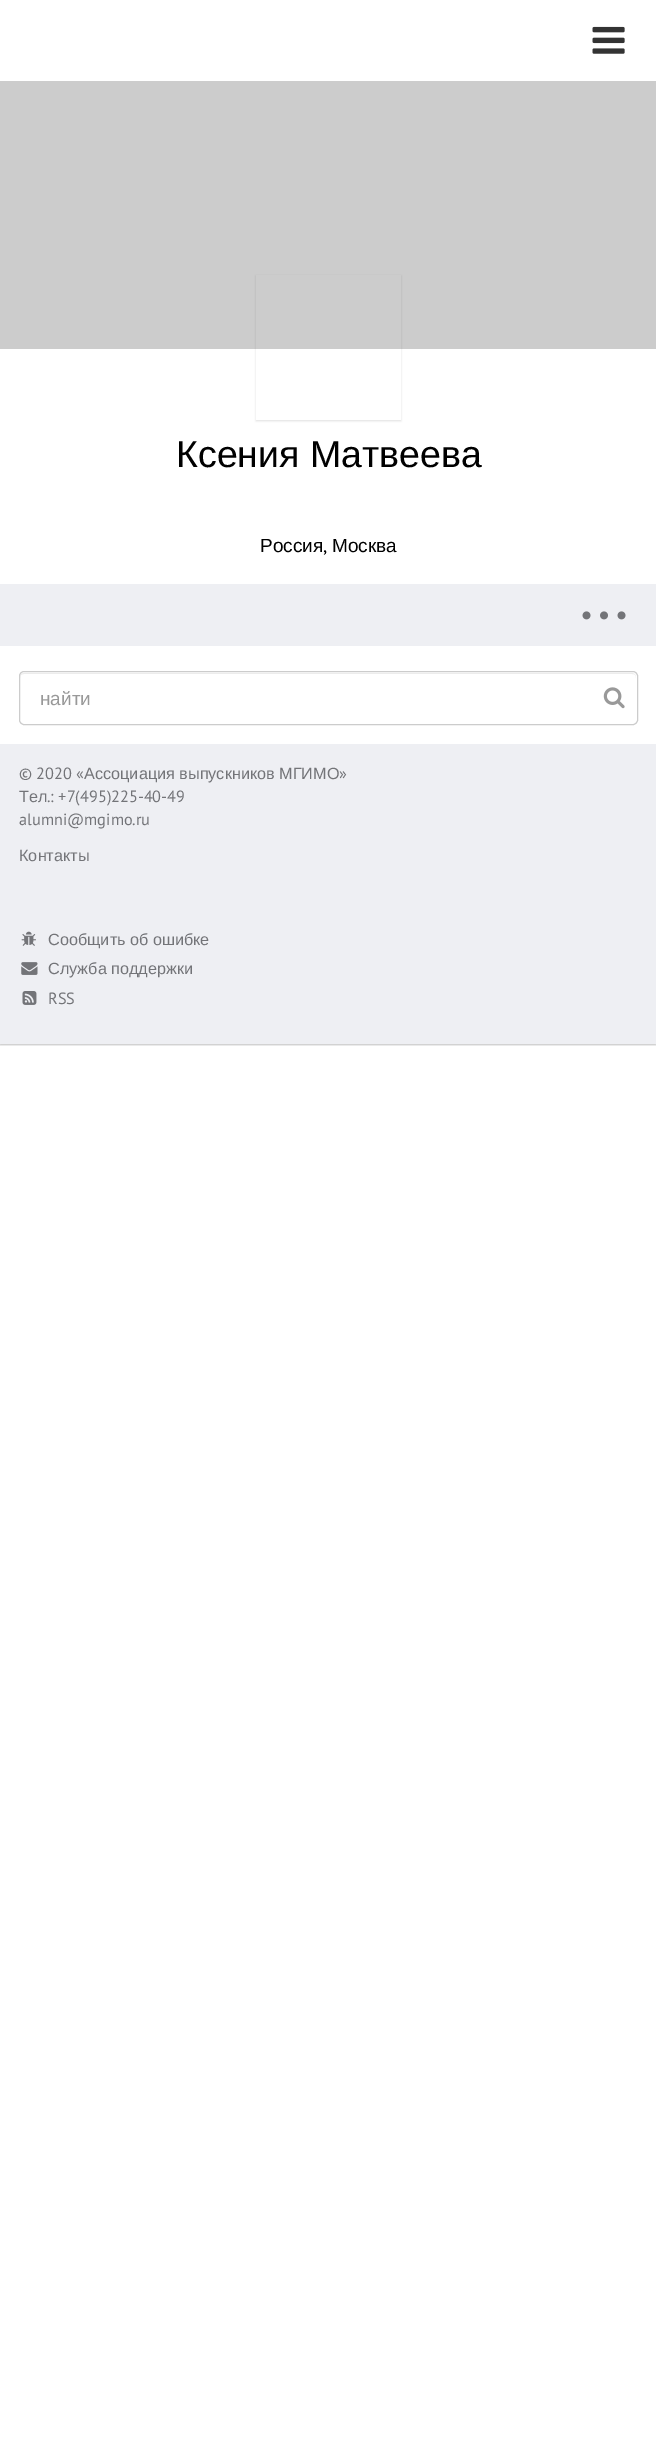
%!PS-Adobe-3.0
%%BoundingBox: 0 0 656 2448
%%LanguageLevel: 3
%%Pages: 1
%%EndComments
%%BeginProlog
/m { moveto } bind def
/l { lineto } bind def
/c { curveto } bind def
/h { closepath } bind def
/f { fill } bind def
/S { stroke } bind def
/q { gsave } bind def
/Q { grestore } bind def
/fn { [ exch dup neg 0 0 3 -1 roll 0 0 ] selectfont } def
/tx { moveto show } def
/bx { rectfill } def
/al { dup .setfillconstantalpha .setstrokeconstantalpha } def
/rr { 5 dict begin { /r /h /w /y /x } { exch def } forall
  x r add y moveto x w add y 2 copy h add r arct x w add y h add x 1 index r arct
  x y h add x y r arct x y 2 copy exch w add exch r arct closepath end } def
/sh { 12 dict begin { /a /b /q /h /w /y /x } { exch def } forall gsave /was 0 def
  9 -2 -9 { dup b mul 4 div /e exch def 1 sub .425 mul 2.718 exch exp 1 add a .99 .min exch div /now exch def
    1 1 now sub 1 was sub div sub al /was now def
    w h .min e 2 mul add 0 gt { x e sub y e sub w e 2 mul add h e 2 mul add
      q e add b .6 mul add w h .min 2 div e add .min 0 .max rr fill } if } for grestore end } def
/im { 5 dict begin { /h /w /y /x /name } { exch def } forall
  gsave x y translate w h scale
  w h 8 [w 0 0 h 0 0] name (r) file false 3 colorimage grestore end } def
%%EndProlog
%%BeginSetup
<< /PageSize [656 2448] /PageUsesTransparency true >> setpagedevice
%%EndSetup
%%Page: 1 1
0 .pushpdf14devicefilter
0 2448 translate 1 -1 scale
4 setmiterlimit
1 setgray
0 0 656 2448 bx
(image0.raw) 592 26 33 28 im
q
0 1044 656 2 rectclip
0 setgray
0 83 656 962 0 1 0.25 sh
Q
0.933 0.937 0.953 setrgbcolor
0 584 656 62 bx
0.8 setgray
0 81 656 268 bx
q
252 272 m 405 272 l 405 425 l 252 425 l h 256 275 m 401 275 l 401 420 l 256 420 l h eoclip newpath
0 setgray
256 276 145 145 0 1 0.12 sh
Q
/LiberationSans-Regular 37.5 fn
0 setgray
(Ксения Матвеева) 176 467 tx
/LiberationSans-Regular 19 fn
(Россия) 260 552 tx
/PTSans-Regular 19 fn
(,) 323 552 tx
/LiberationSans-Regular 19 fn
(Москва) 332 552 tx
(image1.raw) 582 611 9 9 im
(image2.raw) 600 611 8 9 im
(image1.raw) 617 611 9 9 im
0.925 setgray
24 674 m 632 674 l 635 674 636 675 636 678 c 636 677 l 636 675 634 673 632 673 c 24 673 l 22 673 20 675 20 677 c 20 678 l 20 675 22 674 24 674 c h f
0.8 setgray
19.5 671.5 618 53 4.5 rr S
0.6 setgray
(найти) 40 705 tx
(image3.raw) 603 687 22 22 im
0.933 0.937 0.953 setrgbcolor
0 744 656 300 bx
/PTSans-Regular 16.25 fn
0.451 0.455 0.471 setrgbcolor
(© 2020 «) 19 779 tx
/LiberationSans-Regular 16.25 fn
(Ассоциация выпускников МГИМО) 84 779 tx
/PTSans-Regular 16.25 fn
(») 339 779 tx
/LiberationSans-Regular 16.25 fn
(Тел) 19 802 tx
/PTSans-Regular 16.25 fn
(.: +7\(495\)225-40-49) 47 802 tx
(alumni@mgimo.ru) 19 825 tx
/LiberationSans-Regular 16.25 fn
(Контакты) 19 861 tx
(image4.raw) 21 931 15 15 im
(Сообщить об ошибке) 48 945 tx
(image5.raw) 21 962 17 13 im
(Служба поддержки) 48 974 tx
(image6.raw) 22 991 15 14 im
/PTSans-Regular 16.25 fn
(RSS) 48 1004 tx
.poppdf14devicefilter showpage
%%EOF
